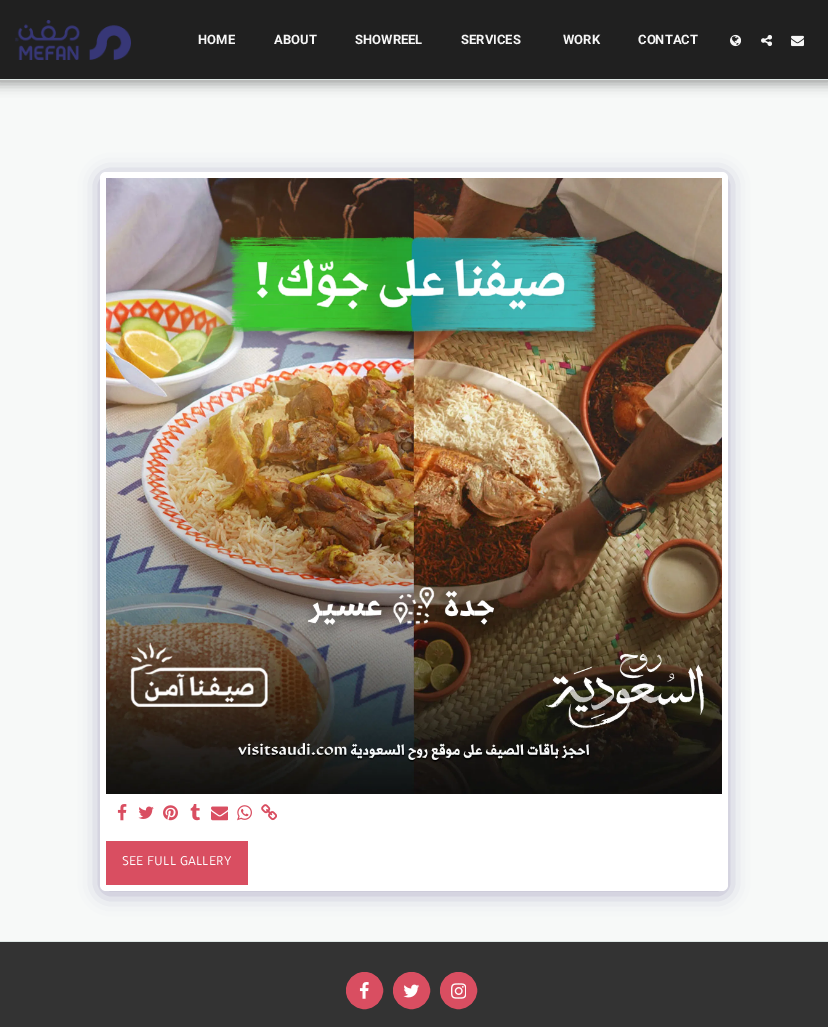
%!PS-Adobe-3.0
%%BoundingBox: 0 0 828 1027
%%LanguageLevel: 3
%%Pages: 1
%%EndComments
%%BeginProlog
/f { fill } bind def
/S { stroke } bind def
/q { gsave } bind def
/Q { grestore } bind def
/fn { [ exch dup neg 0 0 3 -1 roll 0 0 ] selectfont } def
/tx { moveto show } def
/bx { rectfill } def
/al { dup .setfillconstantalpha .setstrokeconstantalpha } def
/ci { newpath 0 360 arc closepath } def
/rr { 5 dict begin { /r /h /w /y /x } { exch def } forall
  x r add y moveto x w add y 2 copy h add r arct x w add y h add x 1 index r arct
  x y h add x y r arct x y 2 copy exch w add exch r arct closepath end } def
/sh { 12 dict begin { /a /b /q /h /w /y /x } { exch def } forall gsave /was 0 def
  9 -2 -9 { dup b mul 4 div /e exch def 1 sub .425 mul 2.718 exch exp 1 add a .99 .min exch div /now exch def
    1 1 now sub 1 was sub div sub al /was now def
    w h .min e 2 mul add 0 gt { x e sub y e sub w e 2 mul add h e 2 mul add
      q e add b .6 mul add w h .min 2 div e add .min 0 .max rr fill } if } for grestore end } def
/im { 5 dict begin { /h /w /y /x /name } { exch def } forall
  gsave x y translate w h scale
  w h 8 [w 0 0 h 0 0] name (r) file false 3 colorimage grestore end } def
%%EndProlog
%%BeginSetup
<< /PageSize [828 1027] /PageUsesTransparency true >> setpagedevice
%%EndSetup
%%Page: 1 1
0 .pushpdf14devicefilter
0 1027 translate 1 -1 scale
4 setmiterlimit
0.875 0.91 0.902 setrgbcolor
0 0 828 1027 bx
0.969 0.976 0.973 setrgbcolor
0 80 828 861 bx
0 setgray
-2 0 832 84 0 6 0.35 sh
0.125 setgray
0 0 828 79 bx
0.875 0.91 0.902 setrgbcolor
0 79 828 1 bx
(image0.raw) 15 20 116 40 im
/Heebo-Bold 13 fn
0.965 setgray
(HOME) 198 44 tx
(ABOUT) 274 44 tx
(SHOWREEL) 355 44 tx
(SERVICES) 461 44 tx
(WORK) 563 44 tx
(CONTACT) 638 44 tx
(image1.raw) 730 34 11 13 im
(image2.raw) 761 34 11 13 im
(image3.raw) 791 35 13 12 im
0.302 0.247 0.478 setrgbcolor
100 175 628 719 6 10 0.4 sh
1 setgray
100 172 628 719 6 rr f
(image4.raw) 106 178 616 616 im
(image5.raw) 117 804 10 17 im
(image6.raw) 138 806 16 13 im
(image7.raw) 163 805 15 16 im
(image8.raw) 190 804 10 17 im
(image9.raw) 211 806 17 15 im
(image10.raw) 237 805 15 16 im
(image11.raw) 261 804 16 17 im
0.851 0.306 0.38 setrgbcolor
106 841 142 44 bx
/Tajawal-Regular 14 fn
1 setgray
(SEE FULL GALLERY) 122 865 tx
0.2 setgray
0 942 828 85 bx
0.851 0.306 0.38 setrgbcolor
364.5 990.5 18 ci q f Q
S
(image12.raw) 359 982 10 17 im
411.5 990.5 18 ci q f Q
S
(image13.raw) 403 984 17 14 im
458.5 990.5 18 ci q f Q
S
(image14.raw) 451 983 15 16 im
.poppdf14devicefilter showpage
%%EOF
